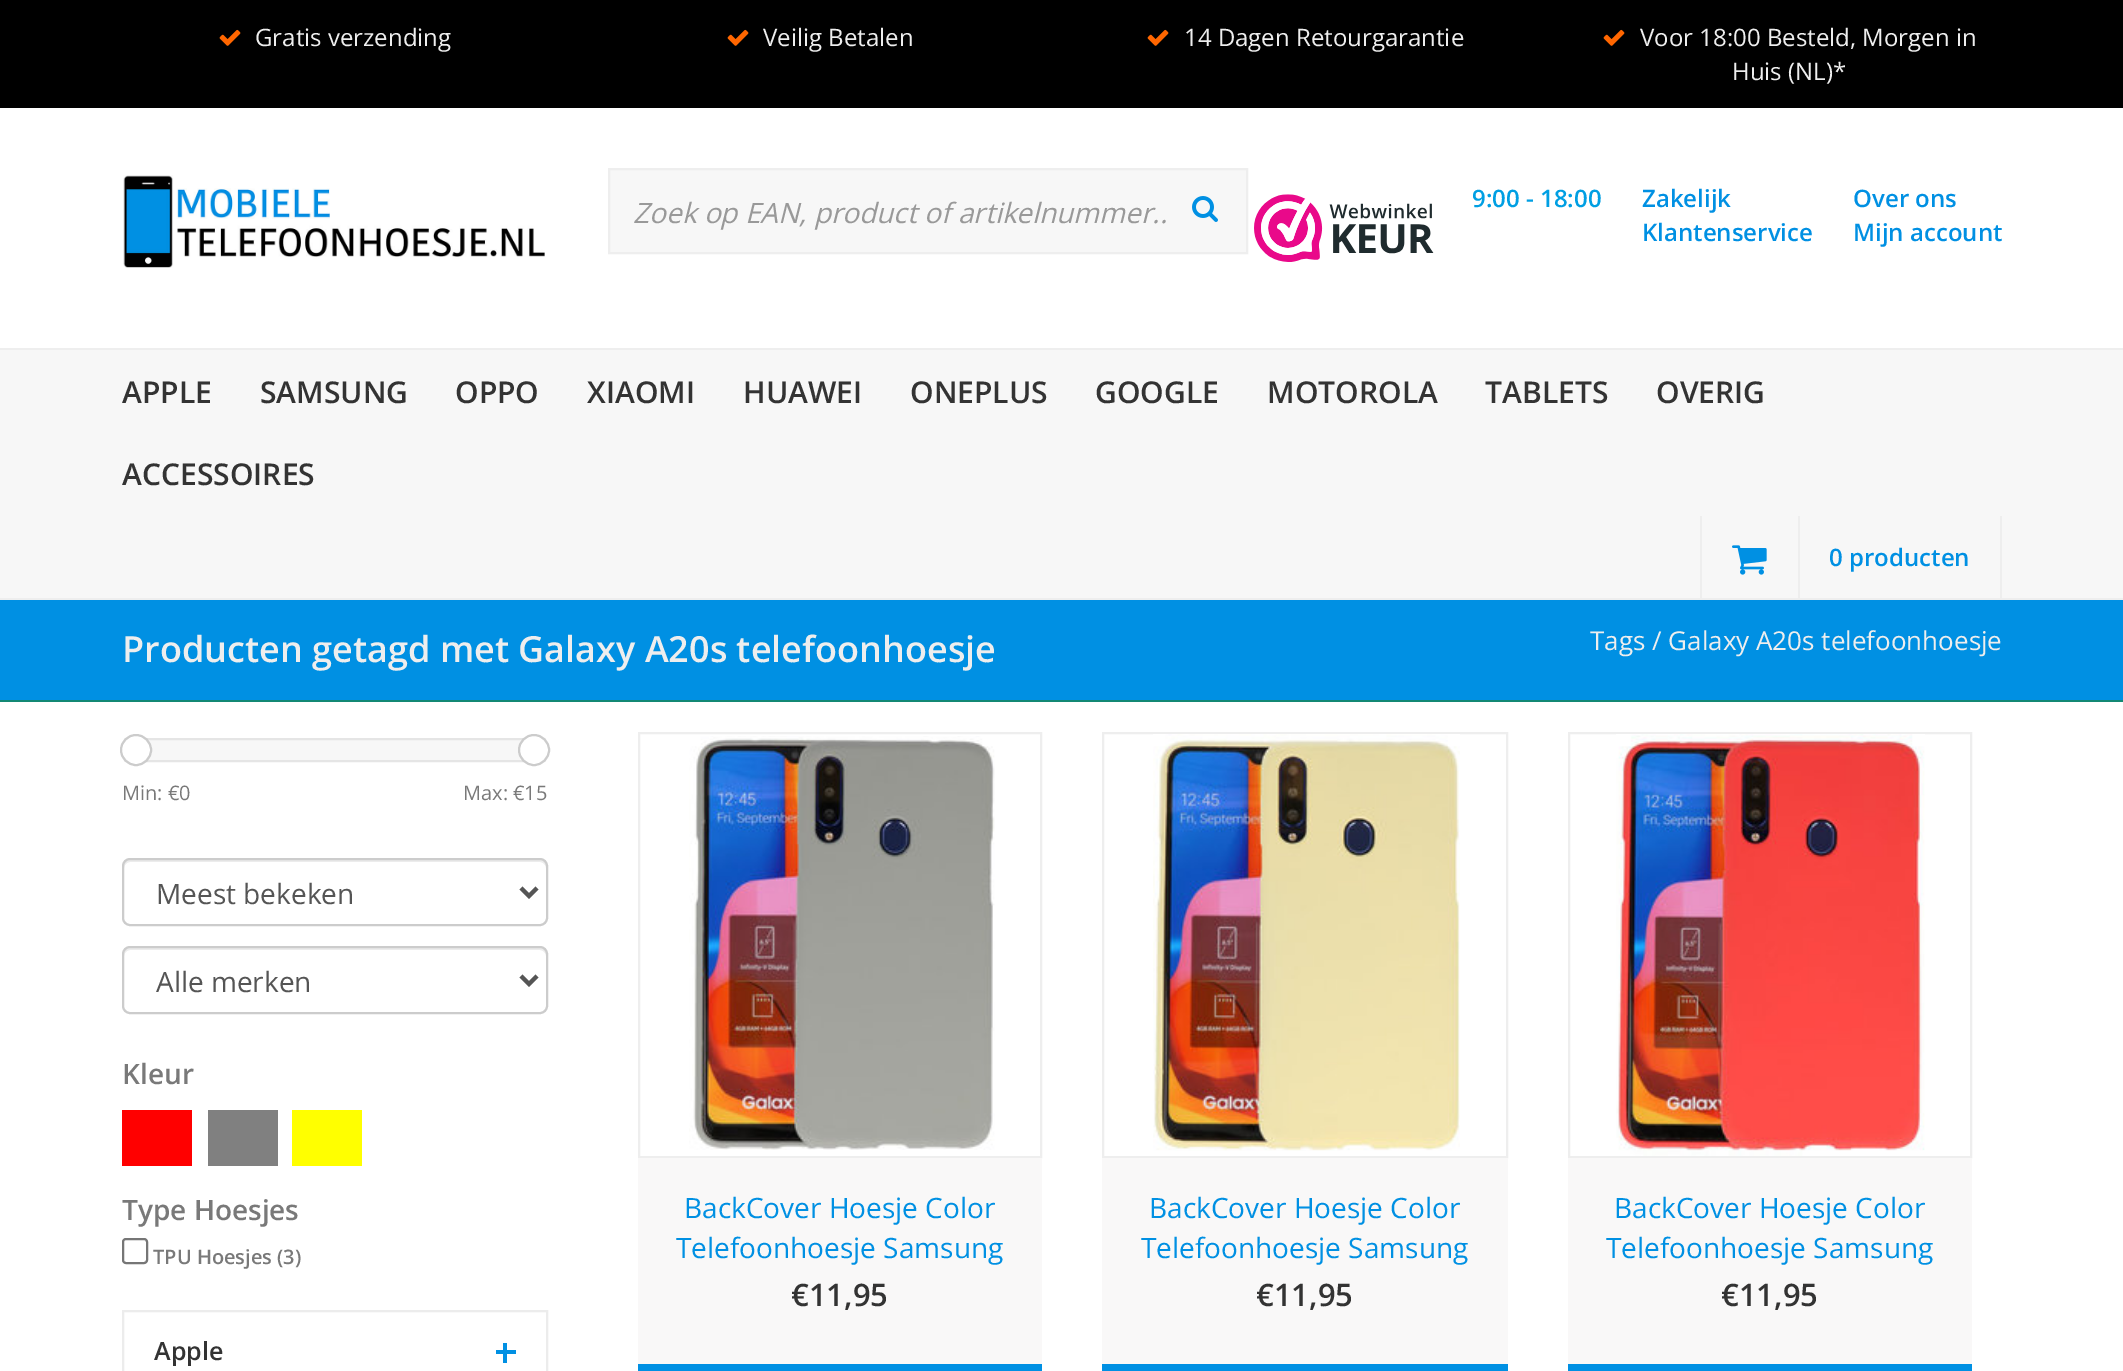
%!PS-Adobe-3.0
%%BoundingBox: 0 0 2123 1371
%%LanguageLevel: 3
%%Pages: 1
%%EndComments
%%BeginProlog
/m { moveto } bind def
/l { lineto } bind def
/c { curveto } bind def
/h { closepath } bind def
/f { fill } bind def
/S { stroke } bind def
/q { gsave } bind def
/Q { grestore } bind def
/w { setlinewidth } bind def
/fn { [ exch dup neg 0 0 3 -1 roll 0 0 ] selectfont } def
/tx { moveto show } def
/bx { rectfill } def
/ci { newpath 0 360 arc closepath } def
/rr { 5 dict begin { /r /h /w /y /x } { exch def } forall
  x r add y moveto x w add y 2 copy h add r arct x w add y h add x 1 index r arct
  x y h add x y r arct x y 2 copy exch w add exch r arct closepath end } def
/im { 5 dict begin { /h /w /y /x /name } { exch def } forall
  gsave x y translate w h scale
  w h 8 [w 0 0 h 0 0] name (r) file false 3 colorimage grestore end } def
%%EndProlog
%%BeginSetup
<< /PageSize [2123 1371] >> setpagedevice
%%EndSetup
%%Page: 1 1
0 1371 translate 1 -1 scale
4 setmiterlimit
1 setgray
0 0 2123 1371 bx
0 setgray
0 0 2123 108 bx
(image0.raw) 219 29 22 17 im
/OpenSans-Regular 24 fn
0.933 setgray
(Gratis verzending) 255 46 tx
(image0.raw) 727 29 22 17 im
(Veilig Betalen) 763 46 tx
(image0.raw) 1147 29 22 17 im
(14 Dagen Retourgarantie) 1184 46 tx
(image0.raw) 1603 29 22 17 im
(Voor 18:00 Besteld, Morgen in) 1640 46 tx
(Huis \(NL\)*) 1732 80 tx
(image1.raw) 123 175 422 93 im
0.969 setgray
609 169 m 1247 169 l 1247 253 l 609 253 l h q f Q
0.933 setgray
2 w
S
/OpenSans-Italic 28 fn
0.6 setgray
(Zoek op EAN, product of artikelnummer..) 633 223 tx
(image2.raw) 1192 196 26 26 im
(image3.raw) 1254 194 180 68 im
/OpenSans-SemiBold 24 fn
0 0.624 0.89 setrgbcolor
(9:00 - 18:00) 1472 207 tx
0 0.565 0.89 setrgbcolor
(Zakelijk) 1642 207 tx
(Klantenservice) 1642 241 tx
(Over ons) 1853 207 tx
(Mijn account) 1853 241 tx
0.969 setgray
0 350 2123 248 bx
0.933 setgray
0 348 2123 2 bx
0 598 2123 2 bx
/OpenSans-SemiBold 30 fn
0.2 setgray
(APPLE) 122 403 tx
(SAMSUNG) 260 403 tx
(OPPO) 455 403 tx
(XIAOMI) 587 403 tx
(HUAWEI) 743 403 tx
(ONEPLUS) 910 403 tx
(GOOGLE) 1095 403 tx
(MOTOROLA) 1267 403 tx
(TABLETS) 1485 403 tx
(OVERIG) 1656 403 tx
(ACCESSOIRES) 122 485 tx
0.933 setgray
1798 516 2 82 bx
1700 516 2 82 bx
(image4.raw) 1732 545 35 30 im
2000 516 2 82 bx
/OpenSans-SemiBold 24 fn
0 0.565 0.89 setrgbcolor
(0 producten) 1829 566 tx
0 600 2123 100 bx
0.075 0.533 0.455 setrgbcolor
0 700 2123 2 bx
/OpenSans-SemiBold 36 fn
0.933 setgray
(Producten getagd met Galaxy A20s telefoonhoesje) 122 662 tx
/OpenSans-Regular 26 fn
(Tags / Galaxy A20s telefoonhoesje) 1590 650 tx
0.969 setgray
148 740 374 20 bx
0.898 setgray
139 739 396 22 rectstroke
1 setgray
136 750 15 ci q f Q
0.8 setgray
S
1 setgray
534 750 15 ci q f Q
0.8 setgray
S
/OpenSans-Regular 20 fn
0.475 setgray
(Min: €0) 122 800 tx
(Max: €15) 463 800 tx
0.925 setgray
130 862 m 540 862 l 543 862 546 865 546 868 c 546 866 l 546 863 543 860 540 860 c 130 860 l 127 860 124 863 124 866 c 124 868 l 124 865 127 862 130 862 c h f
0.8 setgray
123 859 424 66 7 rr S
0.333 setgray
4 w
521 888 m 529 896 l 537 888 l S
/OpenSans-Regular 28 fn
(Meest bekeken) 156 904 tx
0.925 setgray
130 950 m 540 950 l 543 950 546 953 546 956 c 546 954 l 546 951 543 948 540 948 c 130 948 l 127 948 124 951 124 954 c 124 956 l 124 953 127 950 130 950 c h f
0.8 setgray
2 w
123 947 424 66 7 rr S
0.333 setgray
4 w
521 976 m 529 984 l 537 976 l S
(Alle merken) 156 992 tx
/OpenSans-SemiBold 28 fn
0.475 setgray
(Kleur) 122 1084 tx
1 0 0 setrgbcolor
122 1110 70 56 bx
0.502 setgray
208 1110 70 56 bx
1 1 0 setrgbcolor
292 1110 70 56 bx
0.475 setgray
(Type Hoesjes) 122 1220 tx
0.463 setgray
2 w
123 1239 24 24 3 rr S
/OpenSans-SemiBold 20 fn
0.475 setgray
(TPU Hoesjes \(3\)) 153 1264 tx
0.925 setgray
123 1311 424 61 rectstroke
/OpenSans-SemiBold 25 fn
0.2 setgray
(Apple) 154 1360 tx
0 0.565 0.89 setrgbcolor
496 1350 20 4 bx
503 1343 4 20 bx
0.933 setgray
639 733 402 424 rectstroke
(image5.raw) 689 736 306 414 im
0.976 0.973 0.973 setrgbcolor
638 1158 404 206 bx
/OpenSans-Regular 28 fn
0 0.565 0.89 setrgbcolor
(BackCover Hoesje Color) 684 1218 tx
(Telefoonhoesje Samsung) 676 1258 tx
/OpenSans-SemiBold 31 fn
0.2 setgray
(€11,95) 791 1306 tx
0 0.565 0.89 setrgbcolor
638 1364 404 7 bx
0.933 setgray
1103 733 404 424 rectstroke
(image6.raw) 1153 734 307 417 im
0.976 0.973 0.973 setrgbcolor
1102 1158 406 206 bx
/OpenSans-Regular 28 fn
0 0.565 0.89 setrgbcolor
(BackCover Hoesje Color) 1149 1218 tx
(Telefoonhoesje Samsung) 1141 1258 tx
/OpenSans-SemiBold 31 fn
0.2 setgray
(€11,95) 1256 1306 tx
0 0.565 0.89 setrgbcolor
1102 1364 406 7 bx
0.933 setgray
1569 733 402 424 rectstroke
(image7.raw) 1616 734 309 422 im
0.976 0.973 0.973 setrgbcolor
1568 1158 404 206 bx
/OpenSans-Regular 28 fn
0 0.565 0.89 setrgbcolor
(BackCover Hoesje Color) 1614 1218 tx
(Telefoonhoesje Samsung) 1606 1258 tx
/OpenSans-SemiBold 31 fn
0.2 setgray
(€11,95) 1721 1306 tx
0 0.565 0.89 setrgbcolor
1568 1364 404 7 bx
showpage
%%EOF
